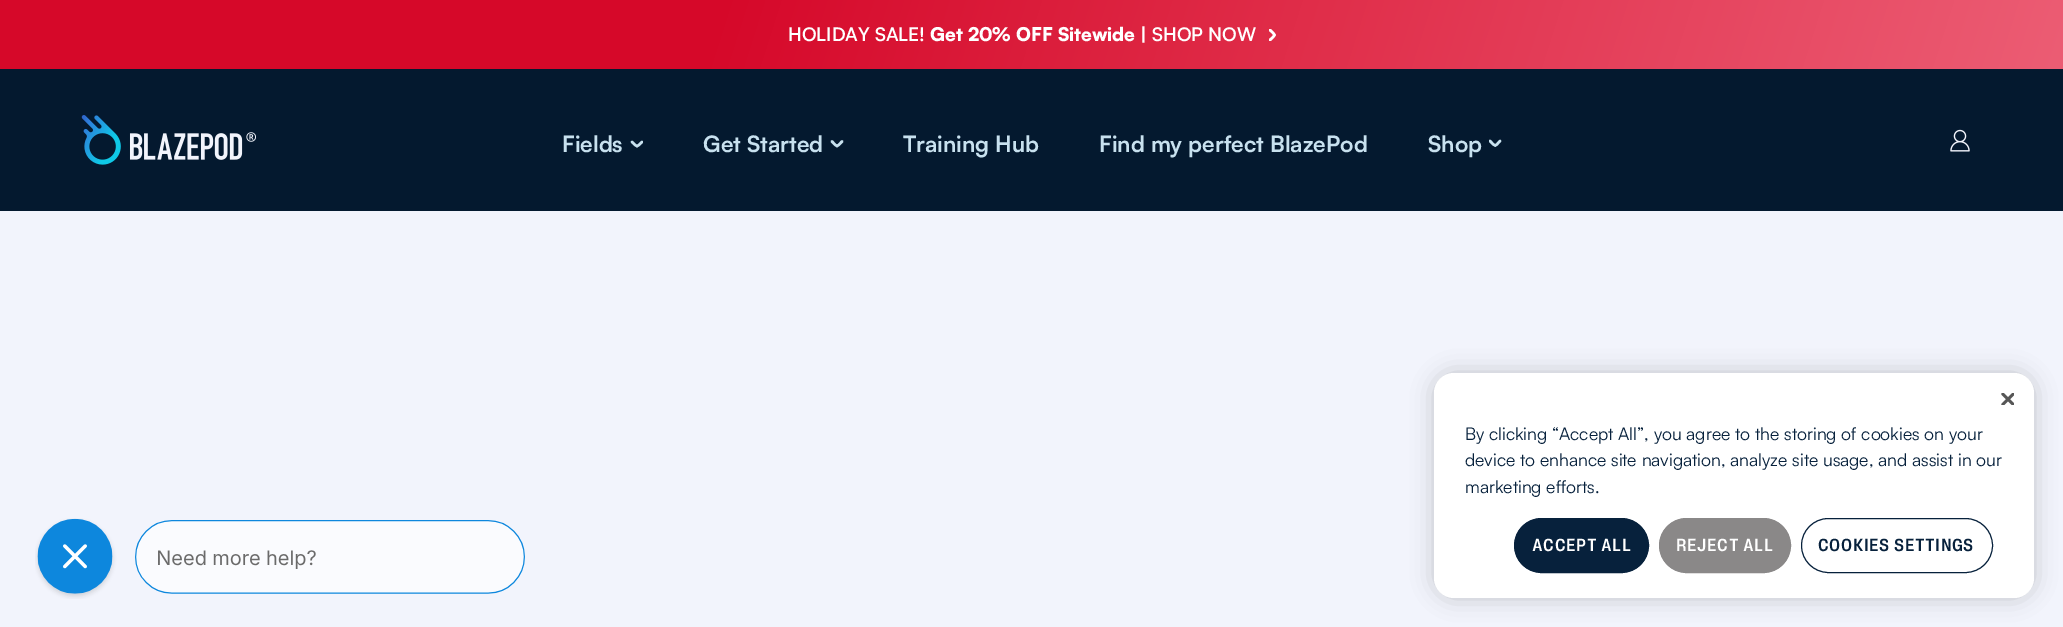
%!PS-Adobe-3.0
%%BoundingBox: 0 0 2063 627
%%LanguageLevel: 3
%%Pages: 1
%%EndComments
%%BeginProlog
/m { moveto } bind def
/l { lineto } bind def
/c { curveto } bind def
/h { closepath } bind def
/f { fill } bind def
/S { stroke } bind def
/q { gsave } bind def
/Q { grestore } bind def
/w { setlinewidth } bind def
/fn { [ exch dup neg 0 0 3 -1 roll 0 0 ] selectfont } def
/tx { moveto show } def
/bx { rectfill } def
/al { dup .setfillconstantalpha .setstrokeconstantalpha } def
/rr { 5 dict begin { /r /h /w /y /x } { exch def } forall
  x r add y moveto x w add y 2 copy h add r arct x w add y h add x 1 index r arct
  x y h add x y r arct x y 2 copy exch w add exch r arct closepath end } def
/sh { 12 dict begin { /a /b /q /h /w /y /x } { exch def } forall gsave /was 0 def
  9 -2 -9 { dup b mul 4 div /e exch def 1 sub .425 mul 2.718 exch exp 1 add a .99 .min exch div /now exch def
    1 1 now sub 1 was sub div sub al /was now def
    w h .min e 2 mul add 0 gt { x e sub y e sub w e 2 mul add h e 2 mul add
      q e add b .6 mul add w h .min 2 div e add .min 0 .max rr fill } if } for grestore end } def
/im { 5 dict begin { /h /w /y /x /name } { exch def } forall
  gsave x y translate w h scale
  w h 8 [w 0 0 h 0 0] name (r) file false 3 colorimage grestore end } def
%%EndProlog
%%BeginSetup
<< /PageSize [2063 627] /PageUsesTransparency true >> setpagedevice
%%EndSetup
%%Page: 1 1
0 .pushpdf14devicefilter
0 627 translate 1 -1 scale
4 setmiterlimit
0.949 0.957 0.988 setrgbcolor
0 0 2063 627 bx
q 0 0 m 2063 0 l 2063 69 l 0 69 l h clip newpath
<< /ShadingType 2 /ColorSpace /DeviceRGB /Coords [85 -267 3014 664] /Extend [true true] /Function << /FunctionType 3 /Domain [0 1] /Functions [<< /FunctionType 2 /Domain [0 1] /C0 [0.839 0.031 0.161] /C1 [0.839 0.031 0.161] /N 1 >> << /FunctionType 2 /Domain [0 1] /C0 [0.839 0.031 0.161] /C1 [1 0.643 0.698] /N 1 >>] /Bounds [0.22] /Encode [0 1 0 1] >> >> shfill Q
/Satoshi-SemiBold 18.75 fn
1 setgray
(HOLIDAY SALE!) 788 41 tx
/Satoshi-Black 18.75 fn
(Get 20% OFF Sitewide |) 930 41 tx
/Satoshi-SemiBold 18.75 fn
(SHOP NOW) 1152 41 tx
q
1269 29 7 12 rectclip
2.5 w
1 setlinecap
1270 30 m 1276 36 1276 34 1270 40 c S
Q
0.016 0.098 0.184 setrgbcolor
0 69 2063 142 bx
(image0.raw) 81 115 175 50 im
/Satoshi-Bold 22.5 fn
0.784 0.882 0.937 setrgbcolor
(Fields) 562 152 tx
q
643 137.5 m 643 150 l 630.5 150 l 630.5 137.5 l h clip newpath
2.5 w
1 setlinecap
642 142 m 636 147.5 638 147.5 632 142 c S
Q
(Get Started) 703 152 tx
2.5 w
1 setlinecap
842 141.5 m 836 147.5 838 147.5 832 141.5 c S
(Training Hub) 903 152 tx
(Find my perfect BlazePod) 1099 152 tx
(Shop) 1428 152 tx
q
1501.5 137.5 m 1501.5 150 l 1489 150 l 1489 137.5 l h clip newpath
1500 141 m 1494.5 147 1496 147 1490 141 c S
Q
(image1.raw) 1950 129 20 23 im
(image2.raw) 35 518 490 81 im
0 setgray
1434 373 600 225 20 11 0.2 sh
1 setgray
1434 373 600 225 20 rr f
(image3.raw) 2001 393 13 12 im
/Satoshi-Regular 17.5 fn
0.027 0.129 0.235 setrgbcolor
(By clicking “Accept All”, you agree to the storing of cookies on your) 1465 440 tx
(device to enhance site navigation, analyze site usage, and assist in our) 1465 466 tx
(marketing efforts.) 1465 493 tx
1514.5 518.5 134 54 27 rr q f Q
1 w
0 setlinecap
S
/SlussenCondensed-SemiBold 16.25 fn
1 setgray
1532 551 m 0.6 0 (ACCEPT ALL) ashow
0.541 0.533 0.533 setrgbcolor
1659.5 518.5 131 54 27 rr q f Q
S
1 setgray
1676 551 m 0.6 0 (REJECT ALL) ashow
0.027 0.129 0.235 setrgbcolor
1801.5 518.5 191 54 27 rr S
1818 551 m 0.6 0 (COOKIES SETTINGS) ashow
.poppdf14devicefilter showpage
%%EOF
